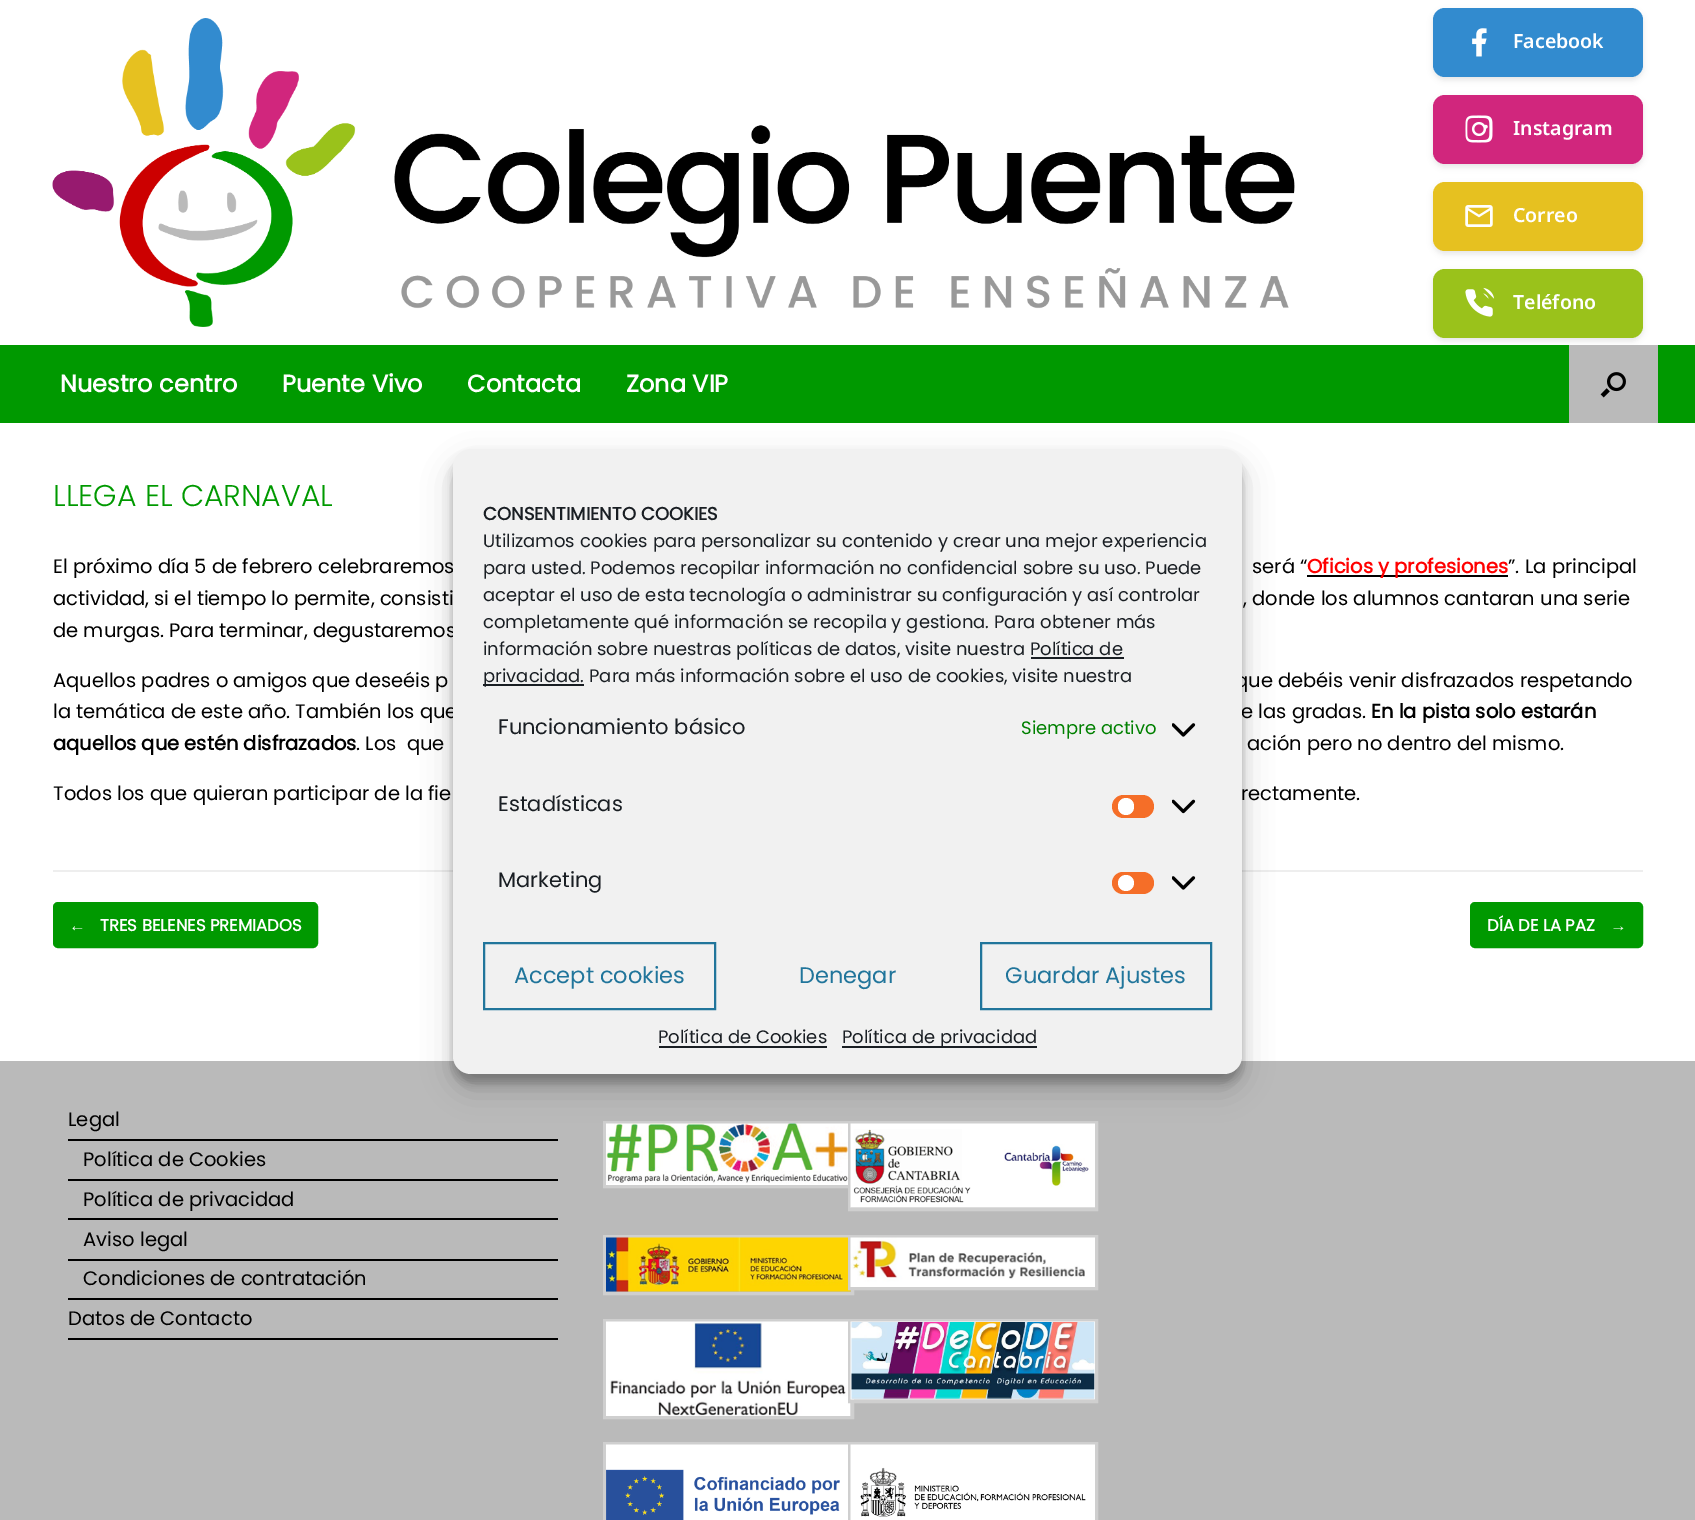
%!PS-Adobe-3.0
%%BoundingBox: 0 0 1695 1520
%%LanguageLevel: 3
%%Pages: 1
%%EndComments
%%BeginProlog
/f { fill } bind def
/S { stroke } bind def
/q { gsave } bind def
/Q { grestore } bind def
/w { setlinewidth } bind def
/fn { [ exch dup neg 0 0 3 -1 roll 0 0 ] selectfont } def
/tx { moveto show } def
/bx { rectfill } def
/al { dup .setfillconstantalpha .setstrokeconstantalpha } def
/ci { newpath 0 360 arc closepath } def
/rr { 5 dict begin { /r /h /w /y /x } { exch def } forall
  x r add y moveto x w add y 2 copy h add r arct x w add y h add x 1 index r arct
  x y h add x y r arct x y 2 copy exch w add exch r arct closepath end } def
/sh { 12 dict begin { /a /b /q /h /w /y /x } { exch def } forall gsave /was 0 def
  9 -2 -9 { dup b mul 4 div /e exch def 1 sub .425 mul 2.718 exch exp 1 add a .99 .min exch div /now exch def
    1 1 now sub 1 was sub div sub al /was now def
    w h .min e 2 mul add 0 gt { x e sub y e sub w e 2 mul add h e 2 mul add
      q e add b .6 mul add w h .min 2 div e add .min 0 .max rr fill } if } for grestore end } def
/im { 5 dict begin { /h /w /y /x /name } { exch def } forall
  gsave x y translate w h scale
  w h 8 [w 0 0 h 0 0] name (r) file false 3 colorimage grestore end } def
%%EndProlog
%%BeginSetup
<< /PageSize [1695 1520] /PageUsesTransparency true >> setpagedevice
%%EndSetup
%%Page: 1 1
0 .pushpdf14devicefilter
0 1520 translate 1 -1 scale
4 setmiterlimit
0.729 setgray
0 0 1695 1520 bx
1 setgray
0 0 1695 345 bx
(image0.raw) 52 18 1243 309 im
0 setgray
1433 11 210 69 12 3 0.1 sh
0.196 0.545 0.812 setrgbcolor
1433 8 210 69 12 rr f
(image1.raw) 1472 28 15 29 im
/NotoSans-SemiBold 19.5 fn
1 setgray
(Facebook) 1513 48 tx
0 setgray
1433 98 210 69 12 3 0.1 sh
0.82 0.149 0.49 setrgbcolor
1433 95 210 69 12 rr f
(image2.raw) 1465 115 28 28 im
1 setgray
(Instagram) 1513 135 tx
0 setgray
1433 185 210 69 12 3 0.1 sh
0.902 0.757 0.125 setrgbcolor
1433 182 210 69 12 rr f
(image3.raw) 1465 205 28 22 im
1 setgray
(Correo) 1513 222 tx
0 setgray
1433 272 210 69 12 3 0.1 sh
0.604 0.761 0.106 setrgbcolor
1433 269 210 69 12 rr f
(image4.raw) 1465 287 30 30 im
1 setgray
(Teléfono) 1513 309 tx
0 0.6 0 setrgbcolor
0 345 1695 78 bx
/Poppins-Bold 24 fn
1 setgray
(Nuestro centro) 60 392 tx
(Puente Vivo) 282 392 tx
(Contacta) 467 392 tx
(Zona VIP) 626 392 tx
0.729 setgray
1569 345 89 78 bx
(image5.raw) 1600 372 26 26 im
1 setgray
0 423 1695 638 bx
0.933 setgray
53 870 1590 2 bx
/Poppins-Light 30 fn
0 0.6 0 setrgbcolor
(LLEGA EL CARNAVAL) 53 506 tx
/Poppins-Regular 19.5 fn
0 setgray
(El próximo día 5 de febrero celebraremos) 53 573 tx
(será “) 1252 573 tx
1307 575 201 2 bx
/Poppins-Bold 19.5 fn
1 0 0 setrgbcolor
(Oficios y profesiones) 1307 573 tx
/Poppins-Regular 19.5 fn
0 setgray
(”. La principal) 1508 573 tx
(actividad, si el tiempo lo permite, consisti) 53 605 tx
(, donde los alumnos cantaran una serie) 1243 605 tx
(de murgas. Para terminar, degustaremos) 53 637 tx
(Aquellos padres o amigos que deseéis p) 53 687 tx
(que debéis venir disfrazados respetando) 1235 687 tx
(la temática de este año. También los que) 53 718 tx
(e las gradas.) 1241 718 tx
/Poppins-Bold 19.5 fn
(En la pista solo estarán) 1371 718 tx
(aquellos que estén disfrazados) 53 750 tx
/Poppins-Regular 19.5 fn
(. Los  que) 356 750 tx
(ación pero no dentro del mismo.) 1247 750 tx
(Todos los que quieran participar de la fie) 53 800 tx
(rectamente.) 1241 800 tx
0 0.6 0 setrgbcolor
54 903 263 44 4 rr q f Q
2 w
S
/LiberationSerif-Bold 16.5 fn
1 setgray
(←) 69 931 tx
/Poppins-Bold 16.5 fn
(TRES BELENES PREMIADOS) 100 931 tx
0 0.6 0 setrgbcolor
1471 903 171 44 4 rr q f Q
S
1 setgray
(DÍA DE LA PAZ) 1487 931 tx
/LiberationSerif-Bold 16.5 fn
(→) 1610 931 tx
0 setgray
68 1139 490 2 bx
/Poppins-Regular 19.5 fn
(Legal) 68 1126 tx
68 1179 490 2 bx
(Política de Cookies) 83 1166 tx
68 1218 490 2 bx
(Política de privacidad) 83 1206 tx
68 1259 490 2 bx
(Aviso legal) 83 1246 tx
68 1298 490 2 bx
(Condiciones de contratación) 83 1285 tx
68 1338 490 2 bx
(Datos de Contacto) 68 1325 tx
0.812 setgray
3 w
604.5 1122.5 248 64 rectstroke
(image6.raw) 606 1123 242 62 im
849.5 1122.5 247 87 rectstroke
(image7.raw) 850 1123 245 85 im
604.5 1236.5 248 57 rectstroke
(image8.raw) 606 1237 245 55 im
849.5 1236.5 247 52 rectstroke
(image9.raw) 850 1237 245 50 im
604.5 1320.5 248 97 rectstroke
(image10.raw) 606 1321 245 95 im
849.5 1320.5 247 81 rectstroke
(image11.raw) 850 1321 245 79 im
604.5 1443.5 248 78 rectstroke
(image12.raw) 606 1444 242 76 im
849.5 1443.5 247 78 rectstroke
(image13.raw) 850 1444 245 76 im
0 setgray
453 458 789 625 18 4.5 0.23 sh
453 464 789 625 18 15 0.19 sh
0.945 setgray
453 449 789 625 18 rr f
/Poppins-Bold 18 fn
0.098 0.118 0.137 setrgbcolor
(CONSENTIMIENTO COOKIES) 483 520 tx
/Poppins-Regular 18 fn
(Utilizamos cookies para personalizar su contenido y crear una mejor experiencia) 483 547 tx
(para usted. Podemos recopilar información no confidencial sobre su uso. Puede) 483 574 tx
(aceptar el uso de esta tecnología o administrar su configuración y así controlar) 483 601 tx
(completamente qué información se recopila y gestiona. Para obtener más) 483 628 tx
(información sobre nuestras políticas de datos, visite nuestra Política de) 483 655 tx
483 684 101 2 bx
(privacidad. Para más información sobre el uso de cookies, visite nuestra) 483 682 tx
1031 657 93 2 bx
/Poppins-Regular 21 fn
(Funcionamiento básico) 498 734 tx
/Poppins-Regular 18 fn
0 0.502 0 setrgbcolor
(Siempre activo) 1021 734 tx
(image14.raw) 1172 723 24 14 im
/Poppins-Regular 21 fn
0.098 0.118 0.137 setrgbcolor
(Estadísticas) 498 811 tx
0.961 0.431 0.157 setrgbcolor
1112 795 42 23 11.5 rr f
1 setgray
1118 798 16 17 8 rr f
(image15.raw) 1172 799 24 15 im
0.098 0.118 0.137 setrgbcolor
(Marketing) 498 887 tx
0.961 0.431 0.157 setrgbcolor
1112 872 42 22 11 rr f
1 setgray
1126 883 8 ci f
(image14.raw) 1172 876 24 14 im
0.129 0.459 0.608 setrgbcolor
2 w
484 943 231 66 rectstroke
/Poppins-Regular 22.5 fn
(Accept cookies) 514 983 tx
(Denegar) 799 983 tx
981 943 230 66 rectstroke
(Guardar Ajustes) 1005 983 tx
/Poppins-Regular 18 fn
0.098 0.118 0.137 setrgbcolor
(Política de Cookies) 658 1043 tx
659 1046 168 2 bx
842 1046 195 2 bx
(Política de privacidad) 842 1043 tx
.poppdf14devicefilter showpage
%%EOF
